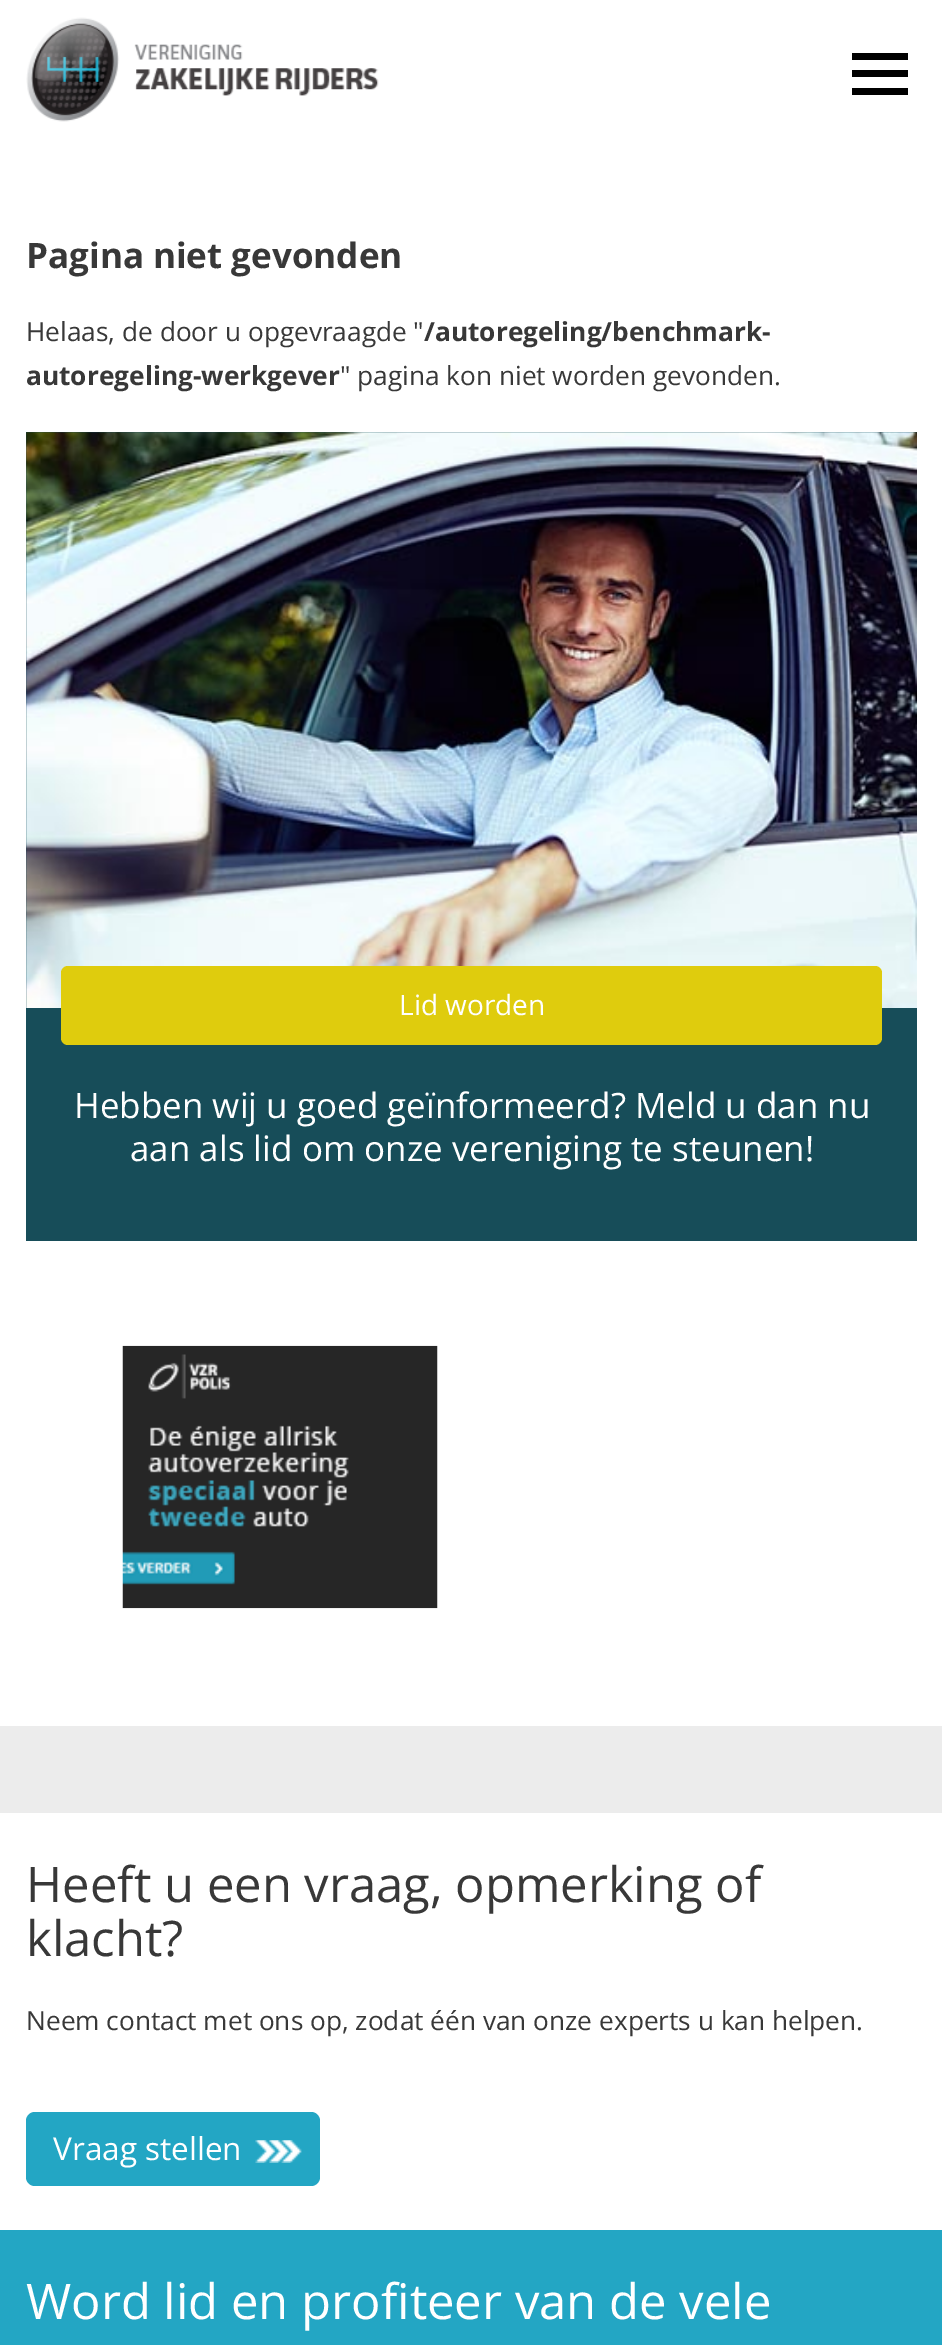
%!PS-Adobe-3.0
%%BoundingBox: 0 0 942 2345
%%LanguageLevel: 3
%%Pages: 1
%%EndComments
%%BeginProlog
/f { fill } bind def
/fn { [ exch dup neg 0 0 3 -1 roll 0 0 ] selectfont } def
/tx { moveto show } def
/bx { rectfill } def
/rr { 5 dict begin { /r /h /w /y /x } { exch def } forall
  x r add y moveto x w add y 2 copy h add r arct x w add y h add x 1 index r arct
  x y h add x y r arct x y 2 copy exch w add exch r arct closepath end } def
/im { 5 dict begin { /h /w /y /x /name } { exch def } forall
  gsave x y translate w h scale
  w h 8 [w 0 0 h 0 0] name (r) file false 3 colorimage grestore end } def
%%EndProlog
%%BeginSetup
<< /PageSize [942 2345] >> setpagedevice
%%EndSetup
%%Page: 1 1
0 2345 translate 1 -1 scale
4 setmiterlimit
1 setgray
0 0 942 2345 bx
(image0.raw) 26 17 353 105 im
0 setgray
852 53 56 7 bx
852 70 56 7 bx
852 88 56 7 bx
/OpenSans-Bold 35 fn
0.22 setgray
(Pagina niet gevonden) 26 268 tx
/OpenSans-Regular 26.25 fn
(Helaas, de door u opgevraagde ") 26 341 tx
/OpenSans-Bold 26.25 fn
(/autoregeling/benchmark-) 424 341 tx
(autoregeling-werkgever) 26 385 tx
/OpenSans-Regular 26.25 fn
(" pagina kon niet worden gevonden.) 340 385 tx
0.09 0.302 0.349 setrgbcolor
26 432 891 809 bx
(image1.raw) 26 432 891 576 im
0.875 0.8 0.051 setrgbcolor
61 966 821 79 7 rr f
/OpenSans-Regular 28 fn
1 setgray
(Lid worden) 399 1015 tx
/OpenSans-Regular 35 fn
(Hebben wij u goed geïnformeerd? Meld u dan nu) 74 1118 tx
(aan als lid om onze vereniging te steunen!) 130 1161 tx
(image2.raw) 122 1345 316 264 im
0.925 setgray
0 1726 942 87 bx
/OpenSans-Regular 49 fn
0.22 setgray
(Heeft u een vraag, opmerking of) 26 1902 tx
(klacht?) 26 1956 tx
/OpenSans-Regular 26.25 fn
(Neem contact met ons op, zodat één van onze experts u kan helpen.) 26 2030 tx
0.137 0.651 0.769 setrgbcolor
26 2112 294 74 9 rr f
/OpenSans-Regular 31.5 fn
1 setgray
(Vraag stellen) 53 2160 tx
(image3.raw) 255 2140 47 23 im
0.137 0.651 0.769 setrgbcolor
0 2230 942 115 bx
/OpenSans-Regular 49 fn
1 setgray
(Word lid en profiteer van de vele) 26 2319 tx
showpage
%%EOF
